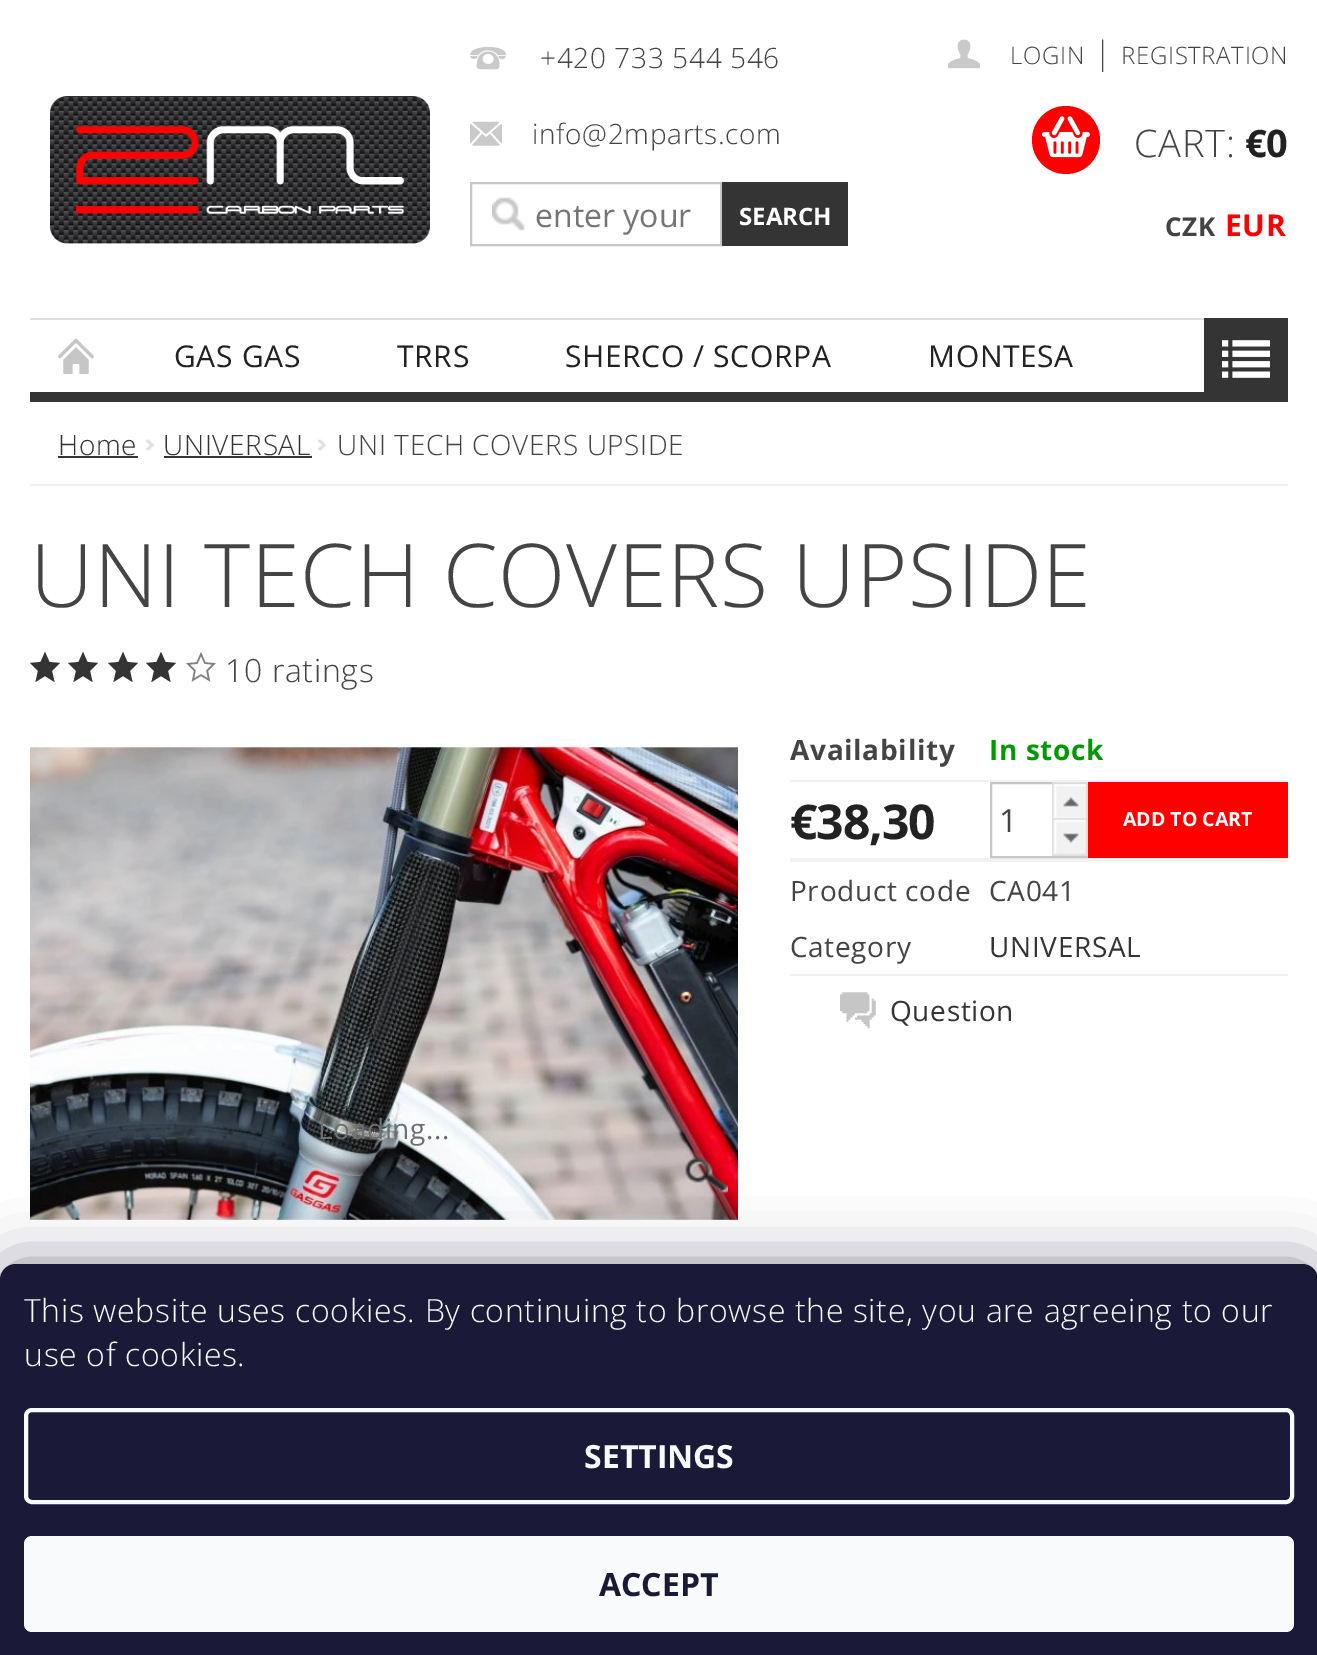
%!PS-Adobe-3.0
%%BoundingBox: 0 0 1317 1655
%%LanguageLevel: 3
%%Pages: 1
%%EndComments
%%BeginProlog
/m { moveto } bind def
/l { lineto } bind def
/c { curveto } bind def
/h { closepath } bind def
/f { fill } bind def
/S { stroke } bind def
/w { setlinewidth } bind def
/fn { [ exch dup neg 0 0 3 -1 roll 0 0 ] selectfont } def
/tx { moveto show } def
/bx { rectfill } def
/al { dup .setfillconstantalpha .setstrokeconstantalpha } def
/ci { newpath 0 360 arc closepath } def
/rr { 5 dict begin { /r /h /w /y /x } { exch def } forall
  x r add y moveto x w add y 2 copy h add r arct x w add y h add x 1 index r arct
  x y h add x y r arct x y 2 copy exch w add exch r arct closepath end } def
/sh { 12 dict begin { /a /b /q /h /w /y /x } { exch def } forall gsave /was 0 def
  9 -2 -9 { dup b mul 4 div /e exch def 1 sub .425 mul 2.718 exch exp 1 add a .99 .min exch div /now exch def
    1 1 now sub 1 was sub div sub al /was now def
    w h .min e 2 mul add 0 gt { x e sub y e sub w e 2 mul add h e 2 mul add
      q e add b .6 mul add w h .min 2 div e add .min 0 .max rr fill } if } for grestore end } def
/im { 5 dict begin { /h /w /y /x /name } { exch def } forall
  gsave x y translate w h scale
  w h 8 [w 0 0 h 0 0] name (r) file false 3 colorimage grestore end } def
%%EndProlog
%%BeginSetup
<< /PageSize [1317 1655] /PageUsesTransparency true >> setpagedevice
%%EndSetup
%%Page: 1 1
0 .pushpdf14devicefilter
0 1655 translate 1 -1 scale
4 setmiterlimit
1 setgray
0 0 1317 1655 bx
0.204 setgray
30 392 1174 10 bx
(image0.raw) 50 96 380 148 im
(image1.raw) 470 46 36 24 im
/OpenSans-Light 28 fn
0.267 setgray
540 68 m 0.65 0 (+420 733 544 546) ashow
(image2.raw) 470 121 32 25 im
532 144 m 0.65 0 (info@2mparts.com) ashow
(image3.raw) 492 197 33 34 im
0.776 setgray
2 w
471 183 250 62 rectstroke
/OpenSans-Regular 32 fn
0.459 setgray
(enter your) 535 227 tx
0.204 setgray
722 182 126 64 bx
/OpenSans-Bold 24 fn
1 setgray
(SEARCH) 739 225 tx
(image4.raw) 948 39 32 30 im
/OpenSans-Light 24 fn
0.267 setgray
1010 64 m 0.65 0 (LOGIN) ashow
/OpenSans-Light 32 fn
1094 64 m 0.65 0 (|) ashow
/OpenSans-Light 24 fn
1121 64 m 0.65 0 (REGISTRATION) ashow
0.996 0 0 setrgbcolor
1066 140 34 ci f
(image5.raw) 1042 116 48 42 im
/OpenSans-Light 38 fn
0.267 setgray
1134 157 m 0.65 0 (CART:) ashow
/OpenSans-Bold 38 fn
0.133 setgray
1245 157 m -1 0 (€0) ashow
/OpenSans-Bold 26 fn
0.267 setgray
1165 236 m 0.65 0 (CZK) ashow
/OpenSans-Bold 30 fn
0.996 0 0 setrgbcolor
1225 236 m 0.65 0 (EUR) ashow
0.878 setgray
30 318 1174 2 bx
(image6.raw) 58 338 36 36 im
/OpenSans-Regular 30 fn
0.133 setgray
174 367 m 0.65 0 (GAS GAS) ashow
397 367 m 0.65 0 (TRRS) ashow
565 367 m 0.65 0 (SHERCO / SCORPA) ashow
928 367 m 0.65 0 (MONTESA) ashow
0.204 setgray
1204 318 84 84 bx
(image7.raw) 1222 340 48 38 im
0.949 setgray
30 484 1258 2 bx
/OpenSans-Light 28 fn
0.204 setgray
58 455 m 0.65 0 (Home) ashow
58 456 80 2 bx
(image8.raw) 146 439 9 12 im
163 455 m 0.65 0 (UNIVERSAL) ashow
164 456 148 2 bx
(image8.raw) 318 439 9 12 im
0.267 setgray
337 455 m 0.65 0 (UNI TECH COVERS UPSIDE) ashow
/OpenSans-Light 88 fn
30 607 m 0.65 0 (UNI TECH COVERS UPSIDE) ashow
0.204 setgray
45 652 m 40.5 662 l 30 663 l 38 671 l 35.5 682 l 45 676 l 54.5 682 l 52 671 l 60 663 l 49.5 662 l h f
83 652 m 78.5 662 l 68 663 l 76 671 l 73.5 682 l 83 676 l 92.5 682 l 90 671 l 98 663 l 87.5 662 l h f
123 652 m 118.5 662 l 108 663 l 116 671 l 113.5 682 l 123 676 l 132.5 682 l 130 671 l 138 663 l 127.5 662 l h f
161 652 m 156.5 662 l 146 663 l 154 671 l 151.5 682 l 161 676 l 170.5 682 l 168 671 l 176 663 l 165.5 662 l h f
(image9.raw) 186 652 30 30 im
/OpenSans-Light 32 fn
0.267 setgray
225 682 m 0.65 0 (10 ratings) ashow
0.949 setgray
790 780 498 2 bx
/OpenSans-Bold 28 fn
0.267 setgray
790 760 m 0.65 0 (Availability) ashow
0 0.6 0.004 setrgbcolor
989 760 m 0.65 0 (In stock) ashow
0.949 setgray
790 858 498 4 bx
/OpenSans-Bold 48 fn
0.133 setgray
790 839 m -1 0 (€38,30) ashow
0.776 setgray
991 783 96 74 rectstroke
(image10.raw) 1052 782 36 36 im
/OpenSans-Regular 32 fn
0.267 setgray
(1) 999 832 tx
(image11.raw) 1052 818 36 38 im
0.996 0 0 setrgbcolor
1088 782 200 76 bx
/OpenSans-Bold 19.5 fn
1 setgray
(ADD TO CART) 1123 826 tx
/OpenSans-Regular 28 fn
0.267 setgray
790 901 m 0.65 0 (Product code) ashow
989 901 m 0.65 0 (CA041) ashow
0.949 setgray
790 974 498 2 bx
0.267 setgray
790 957 m 0.65 0 (Category) ashow
0.204 setgray
989 957 m 0.65 0 (UNIVERSAL) ashow
(image12.raw) 840 992 36 37 im
890 1021 m 0.65 0 (Question) ashow
(image13.raw) 30 735 708 486 im
0.431 0.439 0.439 setrgbcolor
318 1139 m 0.65 0 (Loading...) ashow
(image14.raw) 685 1157 43 38 im
0.106 0.098 0.224 setrgbcolor
0 1264 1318 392 16 30 0.5 sh
0.102 0.098 0.216 setrgbcolor
16 1264 m 1302 1264 l 1311 1264 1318 1271 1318 1280 c 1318 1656 l 0 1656 l 0 1280 l 0 1271 7 1264 16 1264 c h f
/OpenSans-Light 32 fn
0.973 0.98 0.984 setrgbcolor
24 1322 m 0.65 0 (This website uses cookies. By continuing to browse the site, you are agreeing to our) ashow
24 1366 m 0.65 0 (use of cookies.) ashow
4 w
26 1410 1266 92 6 rr S
/OpenSans-Bold 32 fn
(SETTINGS) 584 1468 tx
24 1536 1270 96 8 rr f
0.102 0.098 0.216 setrgbcolor
(ACCEPT) 599 1596 tx
.poppdf14devicefilter showpage
%%EOF
